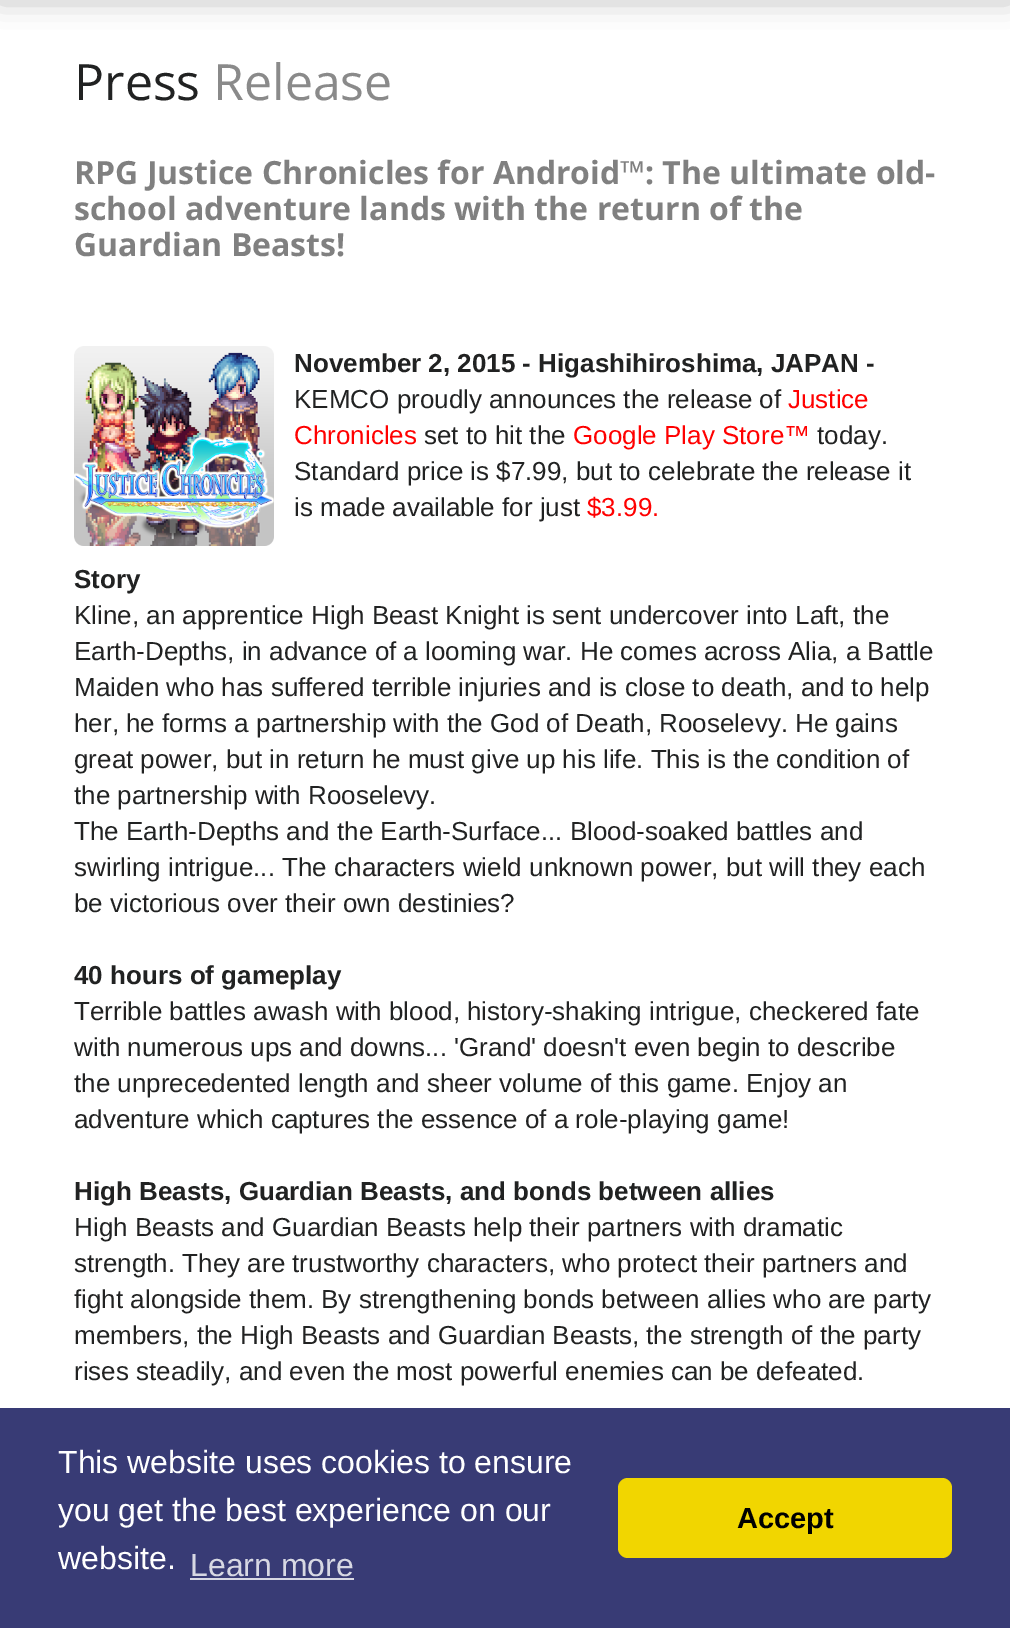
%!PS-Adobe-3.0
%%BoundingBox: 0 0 1010 1628
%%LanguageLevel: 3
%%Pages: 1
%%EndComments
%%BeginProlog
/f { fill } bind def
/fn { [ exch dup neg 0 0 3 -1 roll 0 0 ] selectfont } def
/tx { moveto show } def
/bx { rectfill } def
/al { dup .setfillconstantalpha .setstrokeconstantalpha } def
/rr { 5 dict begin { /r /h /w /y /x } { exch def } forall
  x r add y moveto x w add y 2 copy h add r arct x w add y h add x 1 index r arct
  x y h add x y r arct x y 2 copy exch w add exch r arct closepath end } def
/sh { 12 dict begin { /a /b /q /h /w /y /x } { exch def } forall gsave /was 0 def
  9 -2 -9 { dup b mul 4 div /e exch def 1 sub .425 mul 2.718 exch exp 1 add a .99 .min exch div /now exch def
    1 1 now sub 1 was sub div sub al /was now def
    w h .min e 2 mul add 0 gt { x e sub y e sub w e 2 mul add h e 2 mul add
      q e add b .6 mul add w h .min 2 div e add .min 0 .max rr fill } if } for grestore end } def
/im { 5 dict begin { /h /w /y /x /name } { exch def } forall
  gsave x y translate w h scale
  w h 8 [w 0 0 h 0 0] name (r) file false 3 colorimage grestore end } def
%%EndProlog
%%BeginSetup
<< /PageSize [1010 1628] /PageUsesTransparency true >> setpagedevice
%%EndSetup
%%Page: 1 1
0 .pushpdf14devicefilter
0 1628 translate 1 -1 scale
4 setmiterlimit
1 setgray
0 0 1010 1628 bx
0 setgray
0 -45 1010 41 0 15 0.35 sh
/OpenSans-Regular 50 fn
0.129 0.133 0.133 setrgbcolor
(Press) 74 100 tx
0.541 setgray
(Release) 213 100 tx
/OpenSans-Bold 32 fn
0.502 setgray
(RPG Justice Chronicles for Android™: The ultimate old-) 74 184 tx
(school adventure lands with the return of the) 74 220 tx
(Guardian Beasts!) 74 256 tx
(image0.raw) 74 346 200 200 im
/LiberationSans-Bold 26 fn
0.129 0.133 0.133 setrgbcolor
(November 2, 2015 - Higashihiroshima, JAPAN -) 294 372 tx
/LiberationSans-Regular 26 fn
(KEMCO proudly announces the release of) 294 408 tx
1 0 0 setrgbcolor
(Justice) 788 408 tx
(Chronicles) 294 444 tx
0.129 0.133 0.133 setrgbcolor
(set to hit the) 424 444 tx
1 0 0 setrgbcolor
(Google Play Store™) 573 444 tx
0.129 0.133 0.133 setrgbcolor
(today.) 817 444 tx
(Standard price is $7.99, but to celebrate the release it) 294 480 tx
(is made available for just) 294 516 tx
1 0 0 setrgbcolor
($3.99.) 587 516 tx
/LiberationSans-Bold 26 fn
0.129 0.133 0.133 setrgbcolor
(Story) 74 588 tx
/LiberationSans-Regular 26 fn
(Kline, an apprentice High Beast Knight is sent undercover into Laft, the) 74 624 tx
(Earth-Depths, in advance of a looming war. He comes across Alia, a Battle) 74 660 tx
(Maiden who has suffered terrible injuries and is close to death, and to help) 74 696 tx
(her, he forms a partnership with the God of Death, Rooselevy. He gains) 74 732 tx
(great power, but in return he must give up his life. This is the condition of) 74 768 tx
(the partnership with Rooselevy.) 74 804 tx
(The Earth-Depths and the Earth-Surface... Blood-soaked battles and) 74 840 tx
(swirling intrigue... The characters wield unknown power, but will they each) 74 876 tx
(be victorious over their own destinies?) 74 912 tx
/LiberationSans-Bold 26 fn
(40 hours of gameplay) 74 984 tx
/LiberationSans-Regular 26 fn
(Terrible battles awash with blood, history-shaking intrigue, checkered fate) 74 1020 tx
(with numerous ups and downs... 'Grand' doesn't even begin to describe) 74 1056 tx
(the unprecedented length and sheer volume of this game. Enjoy an) 74 1092 tx
(adventure which captures the essence of a role-playing game!) 74 1128 tx
/LiberationSans-Bold 26 fn
(High Beasts, Guardian Beasts, and bonds between allies) 74 1200 tx
/LiberationSans-Regular 26 fn
(High Beasts and Guardian Beasts help their partners with dramatic) 74 1236 tx
(strength. They are trustworthy characters, who protect their partners and) 74 1272 tx
(fight alongside them. By strengthening bonds between allies who are party) 74 1308 tx
(members, the High Beasts and Guardian Beasts, the strength of the party) 74 1344 tx
(rises steadily, and even the most powerful enemies can be defeated.) 74 1380 tx
0.22 0.231 0.459 setrgbcolor
0 1408 1010 220 bx
/LiberationSans-Regular 32 fn
1 setgray
(This website uses cookies to ensure) 58 1473 tx
(you get the best experience on our) 58 1521 tx
(website.) 58 1569 tx
0.843 0.847 0.89 setrgbcolor
(Learn more) 190 1576 tx
190 1578 164 2 bx
0.945 0.839 0 setrgbcolor
618 1478 334 80 10 rr f
/LiberationSans-Bold 29 fn
0 setgray
(Accept) 737 1528 tx
.poppdf14devicefilter showpage
%%EOF
